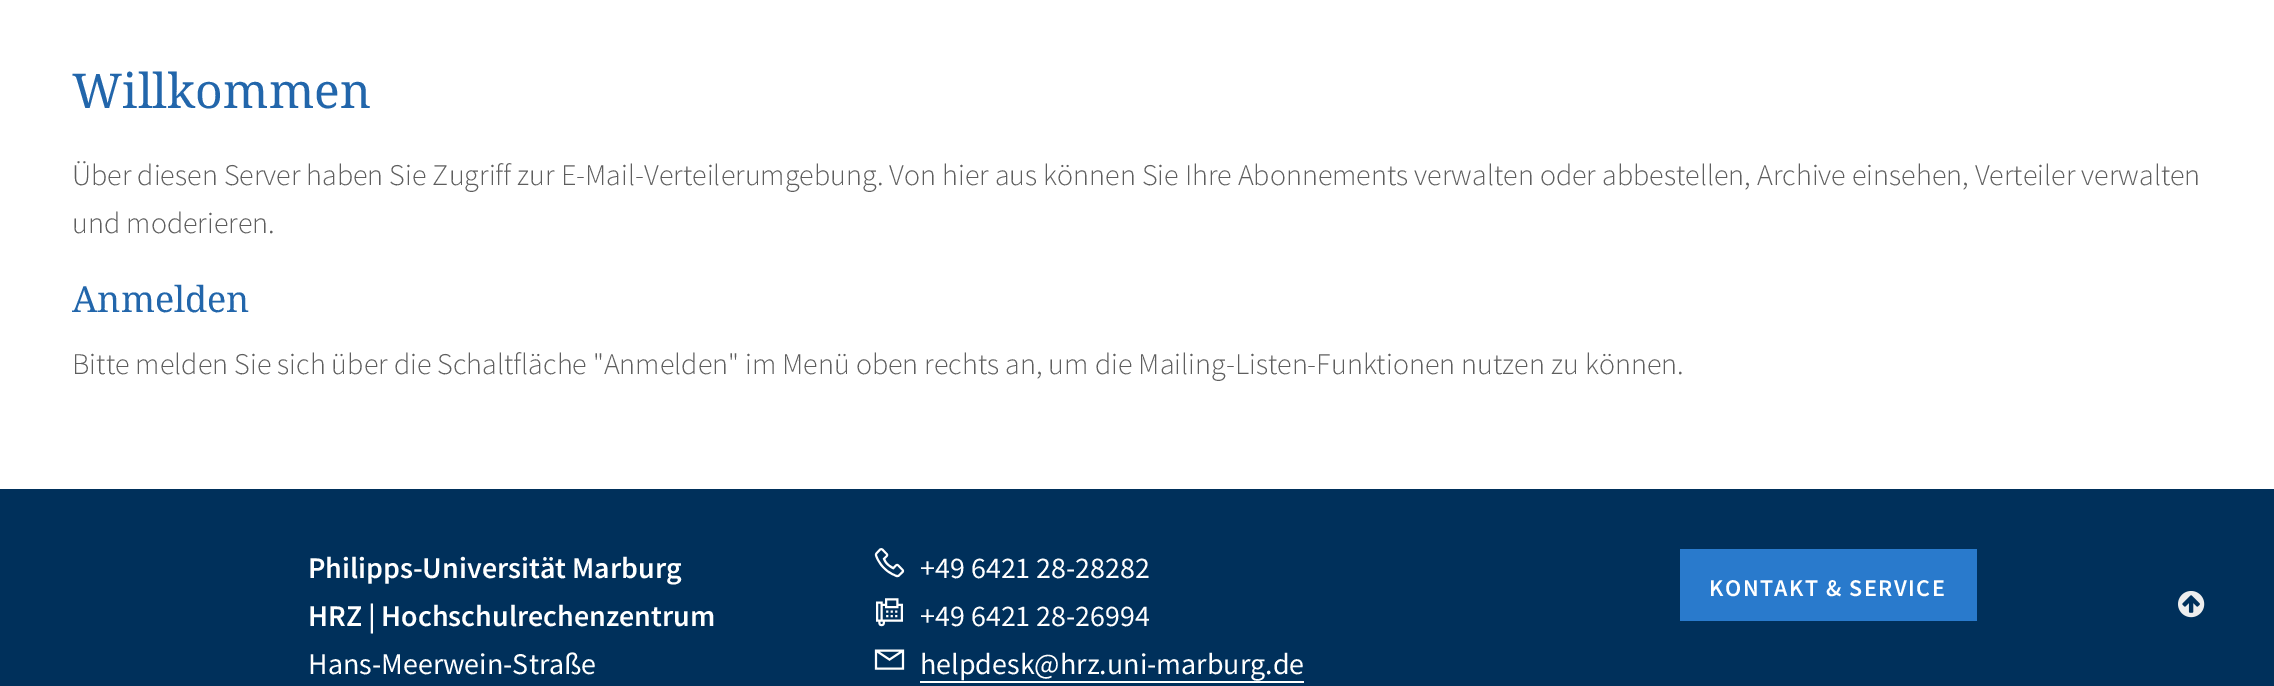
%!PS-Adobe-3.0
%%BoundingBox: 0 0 2274 686
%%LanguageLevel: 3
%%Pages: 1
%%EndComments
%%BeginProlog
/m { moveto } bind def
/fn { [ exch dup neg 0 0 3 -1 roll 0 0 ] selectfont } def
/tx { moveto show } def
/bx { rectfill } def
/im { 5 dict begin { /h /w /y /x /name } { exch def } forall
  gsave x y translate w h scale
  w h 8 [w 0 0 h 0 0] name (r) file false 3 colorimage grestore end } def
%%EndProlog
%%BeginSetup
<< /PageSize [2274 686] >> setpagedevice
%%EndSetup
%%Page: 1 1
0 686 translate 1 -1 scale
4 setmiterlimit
1 setgray
0 0 2274 686 bx
/DroidSerif-Regular 48 fn
0.133 0.4 0.671 setrgbcolor
(Willkommen) 72 108 tx
/SourceSansPro-Light 30 fn
0.369 setgray
(Über diesen Server haben Sie Zugriff zur E-Mail-Verteilerumgebung. Von hier aus können Sie Ihre Abonnements verwalten oder abbestellen, Archive einsehen, Verteiler verwalten) 72 185 tx
(und moderieren.) 72 233 tx
/DroidSerif-Regular 36 fn
0.133 0.4 0.671 setrgbcolor
(Anmelden) 72 312 tx
/SourceSansPro-Light 30 fn
0.369 setgray
(Bitte melden Sie sich über die Schaltfläche "Anmelden" im Menü oben rechts an, um die Mailing-Listen-Funktionen nutzen zu können.) 72 374 tx
0 0.188 0.357 setrgbcolor
0 489 2274 197 bx
(image0.raw) 2178 591 27 27 im
/SourceSansPro-SemiBold 30 fn
1 setgray
(Philipps-Universität Marburg) 308 578 tx
(HRZ | Hochschulrechenzentrum) 308 626 tx
/SourceSansPro-Regular 30 fn
(Hans-Meerwein-Straße) 308 674 tx
(image1.raw) 874 548 31 30 im
(+49 6421 28-28282) 920 578 tx
(image2.raw) 876 598 27 29 im
(+49 6421 28-26994) 920 626 tx
(image3.raw) 874 649 31 21 im
(helpdesk@hrz.uni-marburg.de) 920 674 tx
920 681 384 2 bx
0.161 0.478 0.8 setrgbcolor
1680 549 297 72 bx
/SourceSansPro-SemiBold 24 fn
1 setgray
1709 596 m 1.5 0 (KONTAKT & SERVICE) ashow
showpage
%%EOF
